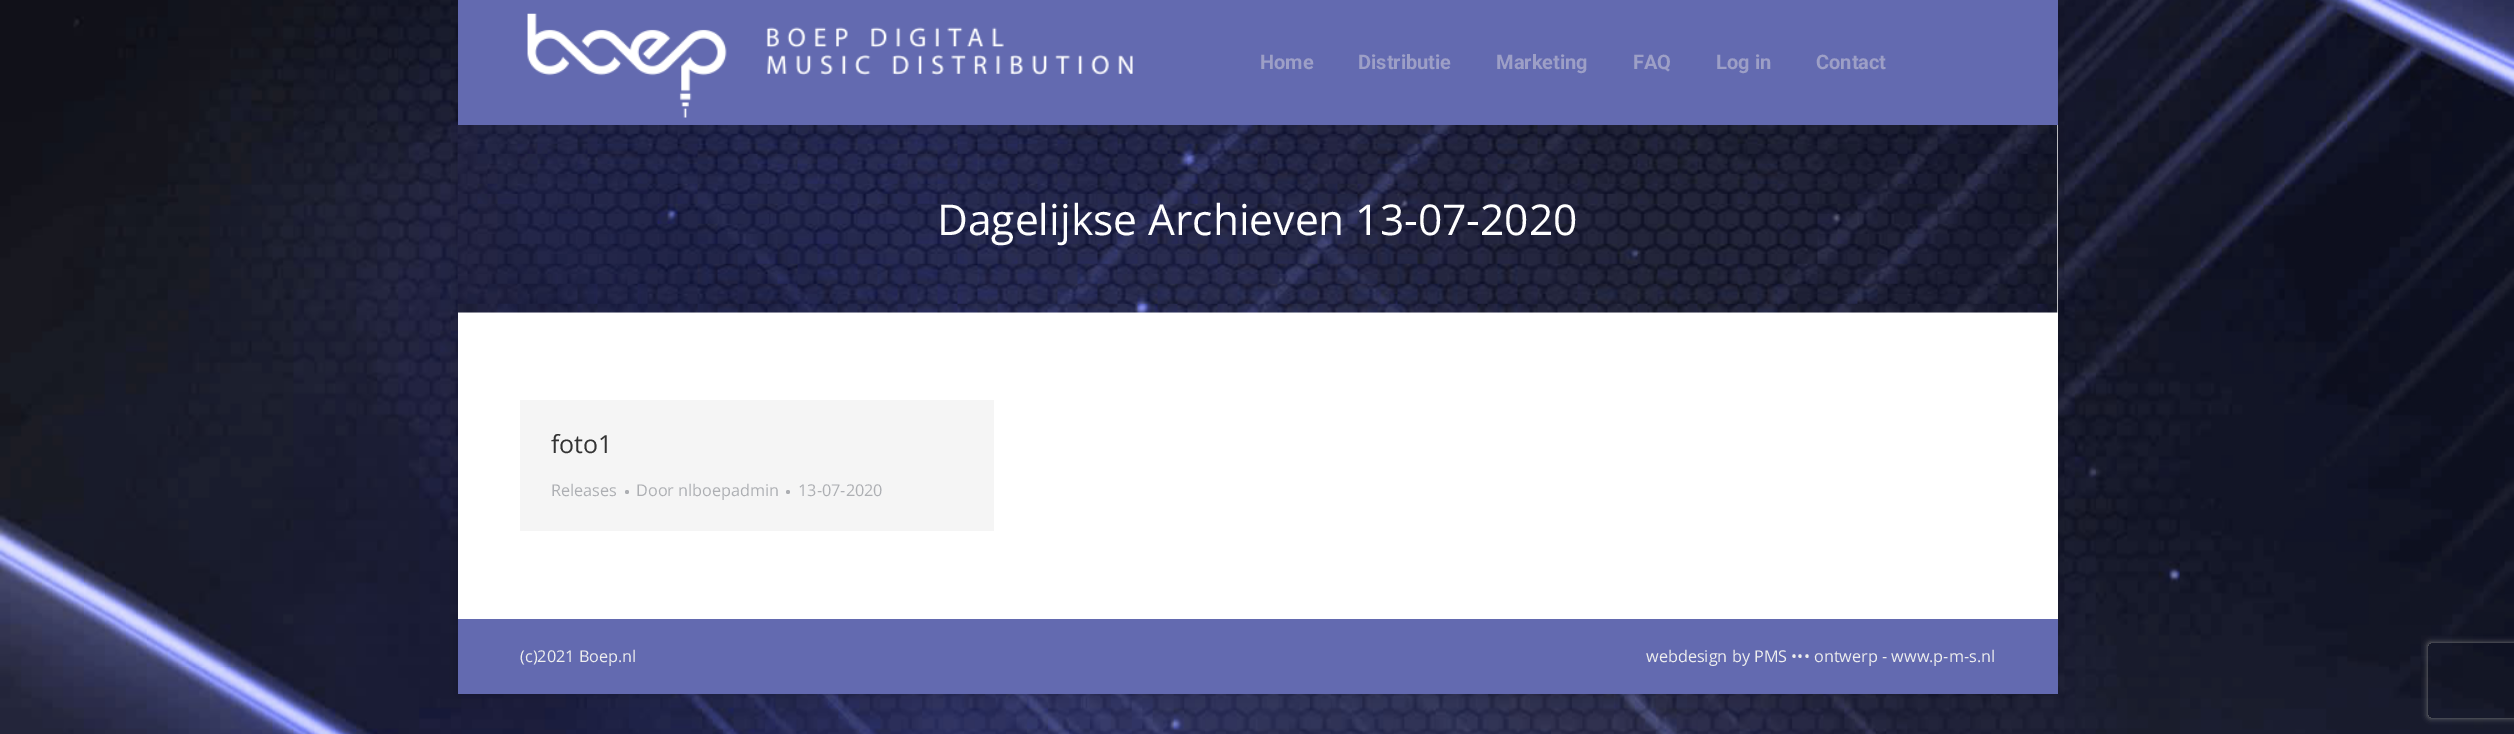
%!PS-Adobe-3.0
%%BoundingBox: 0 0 2514 734
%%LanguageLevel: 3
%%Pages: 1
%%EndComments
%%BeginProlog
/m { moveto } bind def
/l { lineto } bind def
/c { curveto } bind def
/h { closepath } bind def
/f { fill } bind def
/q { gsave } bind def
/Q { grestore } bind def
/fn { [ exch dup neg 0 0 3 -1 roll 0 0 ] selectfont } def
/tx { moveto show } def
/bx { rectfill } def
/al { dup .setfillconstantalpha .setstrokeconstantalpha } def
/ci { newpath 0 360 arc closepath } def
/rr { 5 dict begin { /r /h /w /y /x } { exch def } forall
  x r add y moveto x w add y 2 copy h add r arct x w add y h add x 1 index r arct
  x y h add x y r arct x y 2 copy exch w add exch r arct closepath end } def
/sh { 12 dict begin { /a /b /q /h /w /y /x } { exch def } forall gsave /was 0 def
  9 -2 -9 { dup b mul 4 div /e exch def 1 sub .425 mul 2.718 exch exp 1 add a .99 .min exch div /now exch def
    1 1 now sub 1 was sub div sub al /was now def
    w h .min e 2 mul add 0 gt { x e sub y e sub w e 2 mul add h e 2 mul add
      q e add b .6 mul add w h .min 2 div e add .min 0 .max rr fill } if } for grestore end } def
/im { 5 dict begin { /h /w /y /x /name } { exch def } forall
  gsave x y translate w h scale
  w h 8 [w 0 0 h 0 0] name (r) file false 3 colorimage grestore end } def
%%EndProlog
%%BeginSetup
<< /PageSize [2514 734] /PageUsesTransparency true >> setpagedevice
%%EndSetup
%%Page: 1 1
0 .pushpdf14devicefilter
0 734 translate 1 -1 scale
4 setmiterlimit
1 setgray
0 0 2514 734 bx
(image0.raw) 0 0 2514 734 im
0 setgray
458 0 1600 694 0 7.5 0.15 sh
1 setgray
458 313 1600 306 bx
0.965 setgray
458 125 1600 188 bx
(image2.raw) 457 125 1601 188 im
q
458 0 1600 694 rectclip
0 setgray
456 -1 1603 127 0 9.5 0.07 sh
Q
0.388 0.416 0.69 setrgbcolor
458 0 1600 125 bx
(image1.raw) 527 13 606 105 im
/Roboto-Bold 20 fn
0.616 0.624 0.776 setrgbcolor
(Home) 1260 69 tx
(Distributie) 1358 69 tx
(Marketing) 1496 69 tx
(FAQ) 1633 69 tx
(Log in) 1716 69 tx
(Contact) 1816 69 tx
/OpenSans-Regular 42.5 fn
1 setgray
(Dagelijkse Archieven 13-07-2020) 937 235 tx
0.961 setgray
520 400 474 131 bx
/OpenSans-Regular 25 fn
0.2 setgray
(foto1) 551 453 tx
/OpenSans-Regular 16.25 fn
0.678 0.686 0.702 setrgbcolor
(Releases) 551 496 tx
627 492 2 ci f
(Door nlboepadmin) 636 496 tx
788 492 2 ci f
(13-07-2020) 798 496 tx
0.388 0.416 0.69 setrgbcolor
458 619 1600 75 bx
0.933 setgray
(\(c\)2021 Boep.nl) 520 662 tx
(webdesign by PMS ••• ontwerp - www.p-m-s.nl) 1646 662 tx
q
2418 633 m 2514 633 l 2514 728 l 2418 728 l h 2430.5 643 m 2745.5 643 l 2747 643 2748 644 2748 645.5 c 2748 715.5 l 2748 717 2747 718 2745.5 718 c 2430.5 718 l 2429 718 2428 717 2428 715.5 c 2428 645.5 l 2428 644 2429 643 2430.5 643 c h eoclip newpath
0.502 setgray
2428 643 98 75 2.5 3 1 sh
Q
.poppdf14devicefilter showpage
%%EOF
